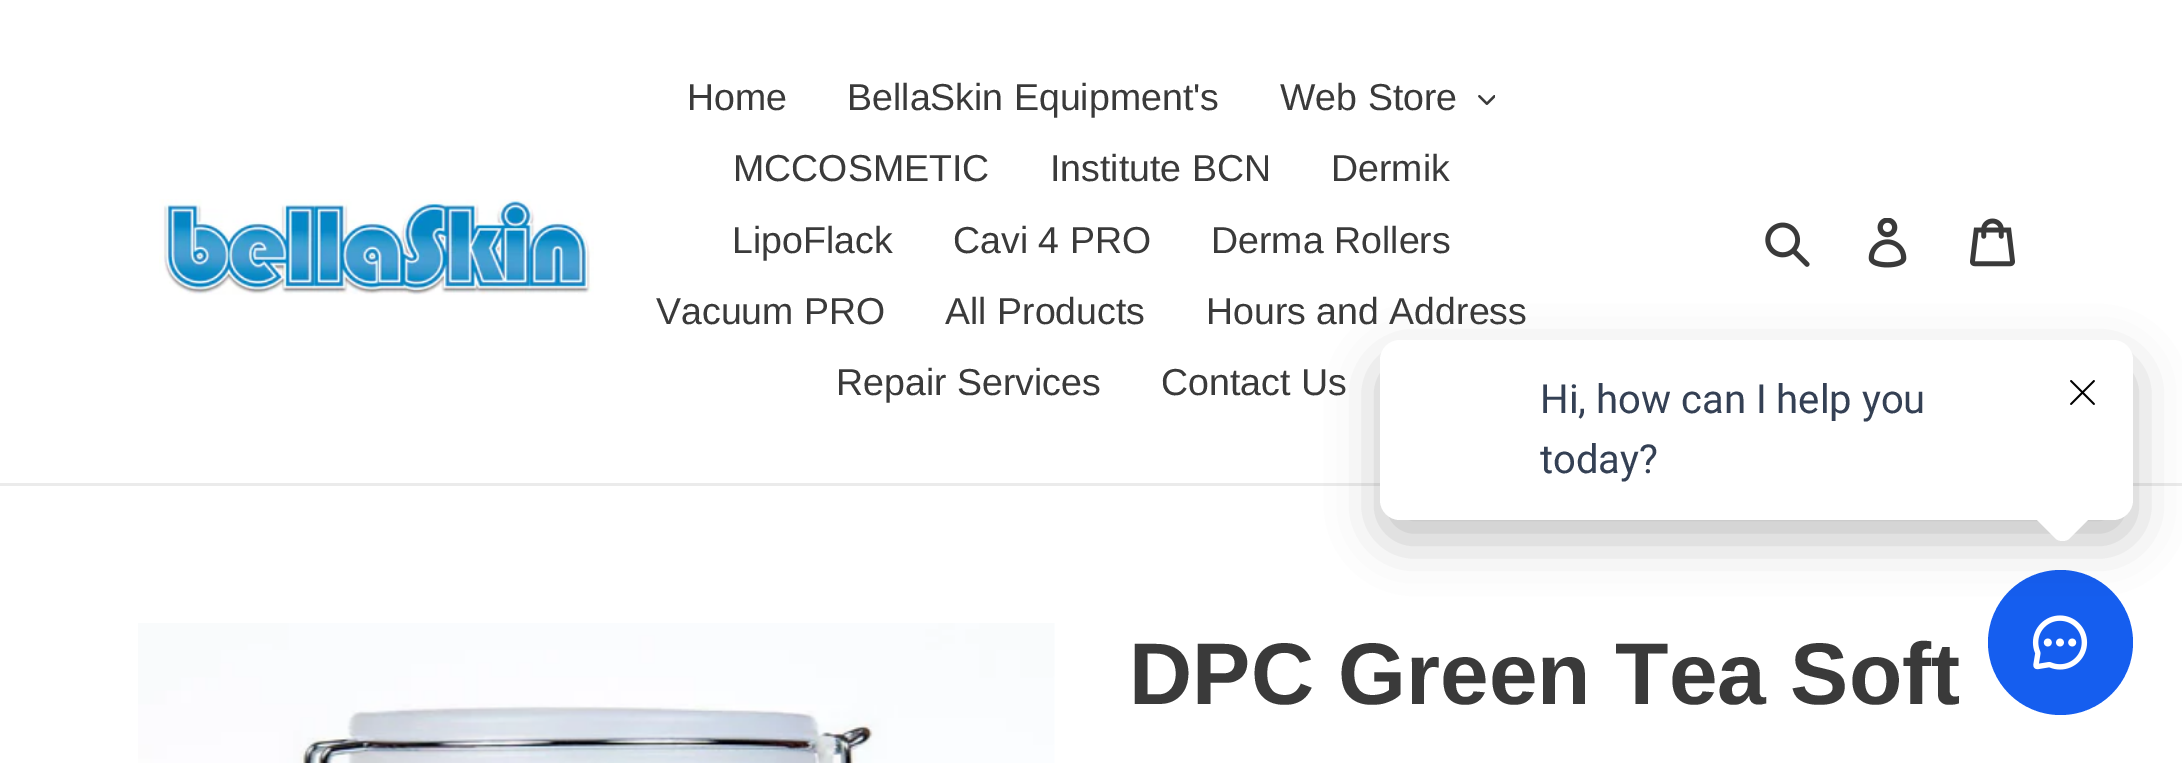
%!PS-Adobe-3.0
%%BoundingBox: 0 0 2182 763
%%LanguageLevel: 3
%%Pages: 1
%%EndComments
%%BeginProlog
/m { moveto } bind def
/l { lineto } bind def
/c { curveto } bind def
/h { closepath } bind def
/f { fill } bind def
/fn { [ exch dup neg 0 0 3 -1 roll 0 0 ] selectfont } def
/tx { moveto show } def
/bx { rectfill } def
/al { dup .setfillconstantalpha .setstrokeconstantalpha } def
/ci { newpath 0 360 arc closepath } def
/rr { 5 dict begin { /r /h /w /y /x } { exch def } forall
  x r add y moveto x w add y 2 copy h add r arct x w add y h add x 1 index r arct
  x y h add x y r arct x y 2 copy exch w add exch r arct closepath end } def
/sh { 12 dict begin { /a /b /q /h /w /y /x } { exch def } forall gsave /was 0 def
  9 -2 -9 { dup b mul 4 div /e exch def 1 sub .425 mul 2.718 exch exp 1 add a .99 .min exch div /now exch def
    1 1 now sub 1 was sub div sub al /was now def
    w h .min e 2 mul add 0 gt { x e sub y e sub w e 2 mul add h e 2 mul add
      q e add b .6 mul add w h .min 2 div e add .min 0 .max rr fill } if } for grestore end } def
/im { 5 dict begin { /h /w /y /x /name } { exch def } forall
  gsave x y translate w h scale
  w h 8 [w 0 0 h 0 0] name (r) file false 3 colorimage grestore end } def
%%EndProlog
%%BeginSetup
<< /PageSize [2182 763] /PageUsesTransparency true >> setpagedevice
%%EndSetup
%%Page: 1 1
0 .pushpdf14devicefilter
0 763 translate 1 -1 scale
4 setmiterlimit
1 setgray
0 0 2182 763 bx
0.922 setgray
0 483 2182 3 bx
(image0.raw) 159 199 435 96 im
/LiberationSans-Regular 37.5 fn
0.227 setgray
(Home) 687 110 tx
(BellaSkin Equipment's) 847 110 tx
(Web Store) 1280 110 tx
(image1.raw) 1478 95 17 10 im
(MCCOSMETIC) 733 181 tx
(Institute BCN) 1050 181 tx
(Dermik) 1331 181 tx
(LipoFlack) 732 253 tx
(Cavi 4 PRO) 953 253 tx
(Derma Rollers) 1211 253 tx
(Vacuum PRO) 656 324 tx
(All Products) 945 324 tx
(Hours and Address) 1206 324 tx
(Repair Services) 836 395 tx
(Contact Us) 1161 395 tx
(image2.raw) 1765 222 45 45 im
(image3.raw) 1868 218 39 50 im
(image4.raw) 1970 218 45 49 im
0.082 0.369 0.937 setrgbcolor
2060.5 642.5 72.5 ci f
(image6.raw) 2032 615 56 55 im
0 setgray
1380 360 753 180 20 25 0.24 sh
1 setgray
1380 340 753 180 20 rr f
/Roboto-Regular 40 fn
0.204 0.251 0.329 setrgbcolor
(Hi, how can I help you) 1540 413 tx
(today?) 1540 473 tx
1 setgray
2070 482 m 2091 503 l 2095 507 2095 513 2091 517 c 2070 538 l 2066 542 2059 542 2055 538 c 2034 517 l 2030 513 2030 507 2034 503 c 2055 482 l 2059 478 2066 478 2070 482 c h f
(image5.raw) 2070 380 25 25 im
(image7.raw) 138 623 917 140 im
/LiberationSans-Bold 87.5 fn
0.227 setgray
(DPC Green Tea Soft) 1129 704 tx
.poppdf14devicefilter showpage
%%EOF
